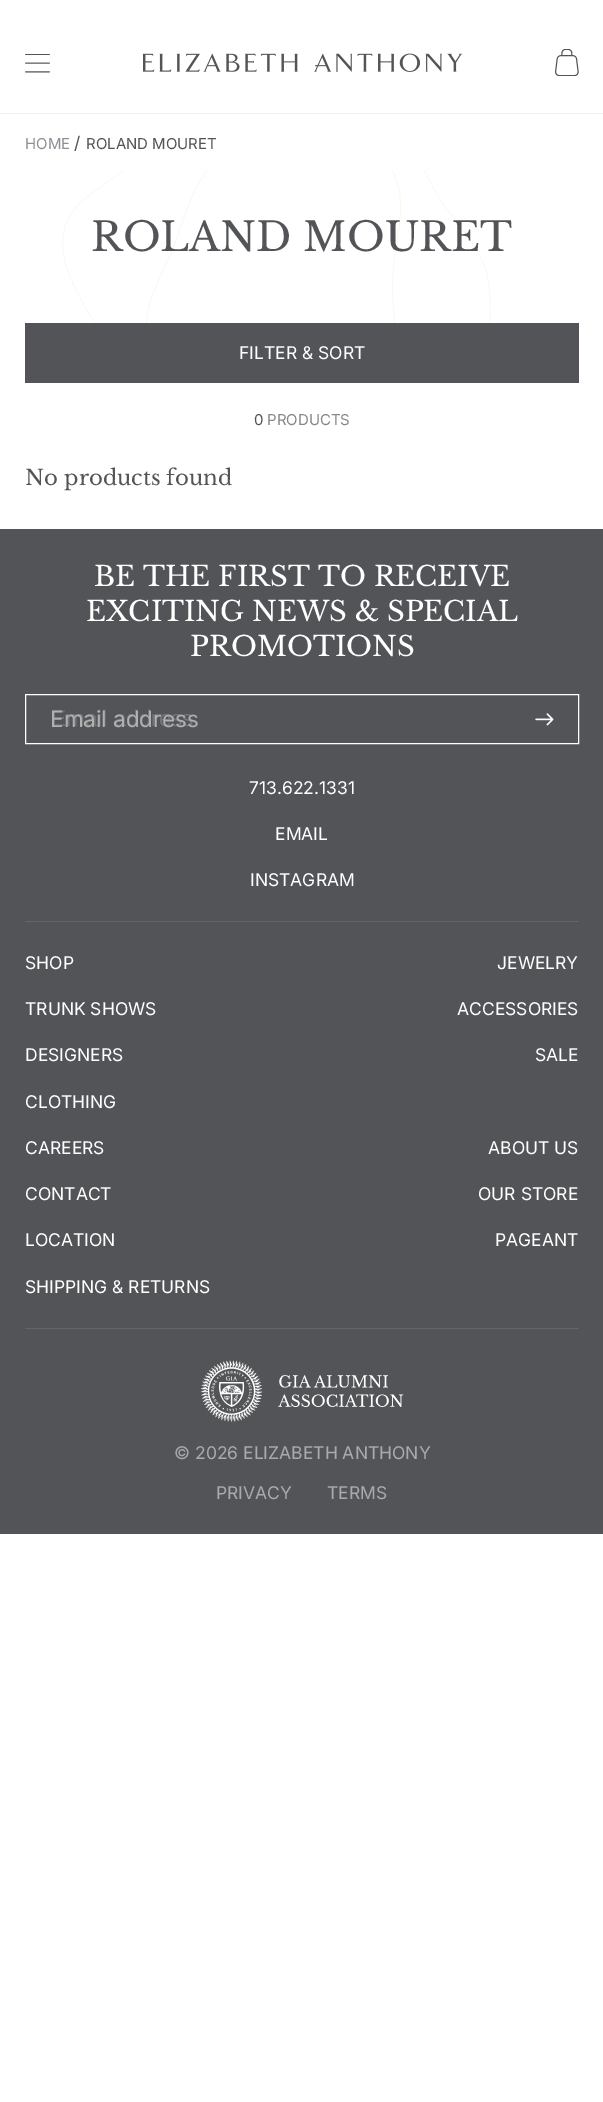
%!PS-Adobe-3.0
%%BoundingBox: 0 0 603 2102
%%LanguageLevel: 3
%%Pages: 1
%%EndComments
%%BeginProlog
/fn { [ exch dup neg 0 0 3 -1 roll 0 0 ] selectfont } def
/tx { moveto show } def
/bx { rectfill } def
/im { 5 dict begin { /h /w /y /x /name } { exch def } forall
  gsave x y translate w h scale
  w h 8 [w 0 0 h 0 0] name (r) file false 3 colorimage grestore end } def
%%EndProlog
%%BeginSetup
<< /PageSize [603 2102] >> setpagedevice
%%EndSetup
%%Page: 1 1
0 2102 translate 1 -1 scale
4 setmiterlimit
1 setgray
0 0 603 2102 bx
0.933 setgray
0 113 603 1 bx
(image0.raw) 25 54 25 19 im
(image1.raw) 143 53 320 19 im
(image2.raw) 555 49 24 27 im
/Inter-Regular 15 fn
0.553 0.565 0.584 setrgbcolor
(HOME) 25 149 tx
/Inter-Regular 17.5 fn
0.322 0.329 0.341 setrgbcolor
(/) 74 149 tx
/Inter-Regular 15 fn
(ROLAND MOURET) 86 149 tx
(image3.raw) 62 170 429 153 im
/LibreBaskerville-Regular 40 fn
(ROLAND MOURET) 91 251 tx
25 323 554 60 bx
/Inter-Regular 17.5 fn
1 setgray
(FILTER & SORT) 239 359 tx
/Inter-Regular 15 fn
0.322 0.329 0.341 setrgbcolor
(0) 254 425 tx
0.525 0.529 0.537 setrgbcolor
(PRODUCTS) 267 425 tx
/LibreBaskerville-Regular 21.25 fn
0.322 0.329 0.341 setrgbcolor
(No products found) 25 485 tx
0 529 603 1005 bx
0.388 0.396 0.408 setrgbcolor
25 921 554 1 bx
/LibreBaskerville-Regular 27.5 fn
1 setgray
(BE THE FIRST TO RECEIVE) 94 586 tx
(EXCITING NEWS & SPECIAL) 86 621 tx
(PROMOTIONS) 190 656 tx
25.5 694.5 553 49 rectstroke
/LiberationSans-Regular 22.5 fn
0.459 setgray
(Email address) 51 726 tx
/Inter-Regular 22.5 fn
0.686 0.69 0.694 setrgbcolor
(Email address) 50 727 tx
(image4.raw) 535 713 19 13 im
/Inter-Regular 17.5 fn
1 setgray
(713.622.1331) 249 794 tx
(EMAIL) 275 840 tx
(INSTAGRAM) 250 886 tx
(SHOP) 25 969 tx
(TRUNK SHOWS) 25 1015 tx
(DESIGNERS) 25 1061 tx
(CLOTHING) 25 1108 tx
(JEWELRY) 497 969 tx
(ACCESSORIES) 457 1015 tx
(SALE) 535 1061 tx
(CAREERS) 25 1154 tx
(CONTACT) 25 1200 tx
(LOCATION) 25 1246 tx
(SHIPPING & RETURNS) 25 1293 tx
(ABOUT US) 488 1154 tx
(OUR STORE) 478 1200 tx
(PAGEANT) 495 1246 tx
0.388 0.396 0.408 setrgbcolor
25 1328 554 1 bx
(image5.raw) 201 1360 203 62 im
0.663 0.667 0.671 setrgbcolor
(© 2026 ELIZABETH ANTHONY) 174 1459 tx
(PRIVACY) 216 1499 tx
(TERMS) 327 1499 tx
showpage
%%EOF
